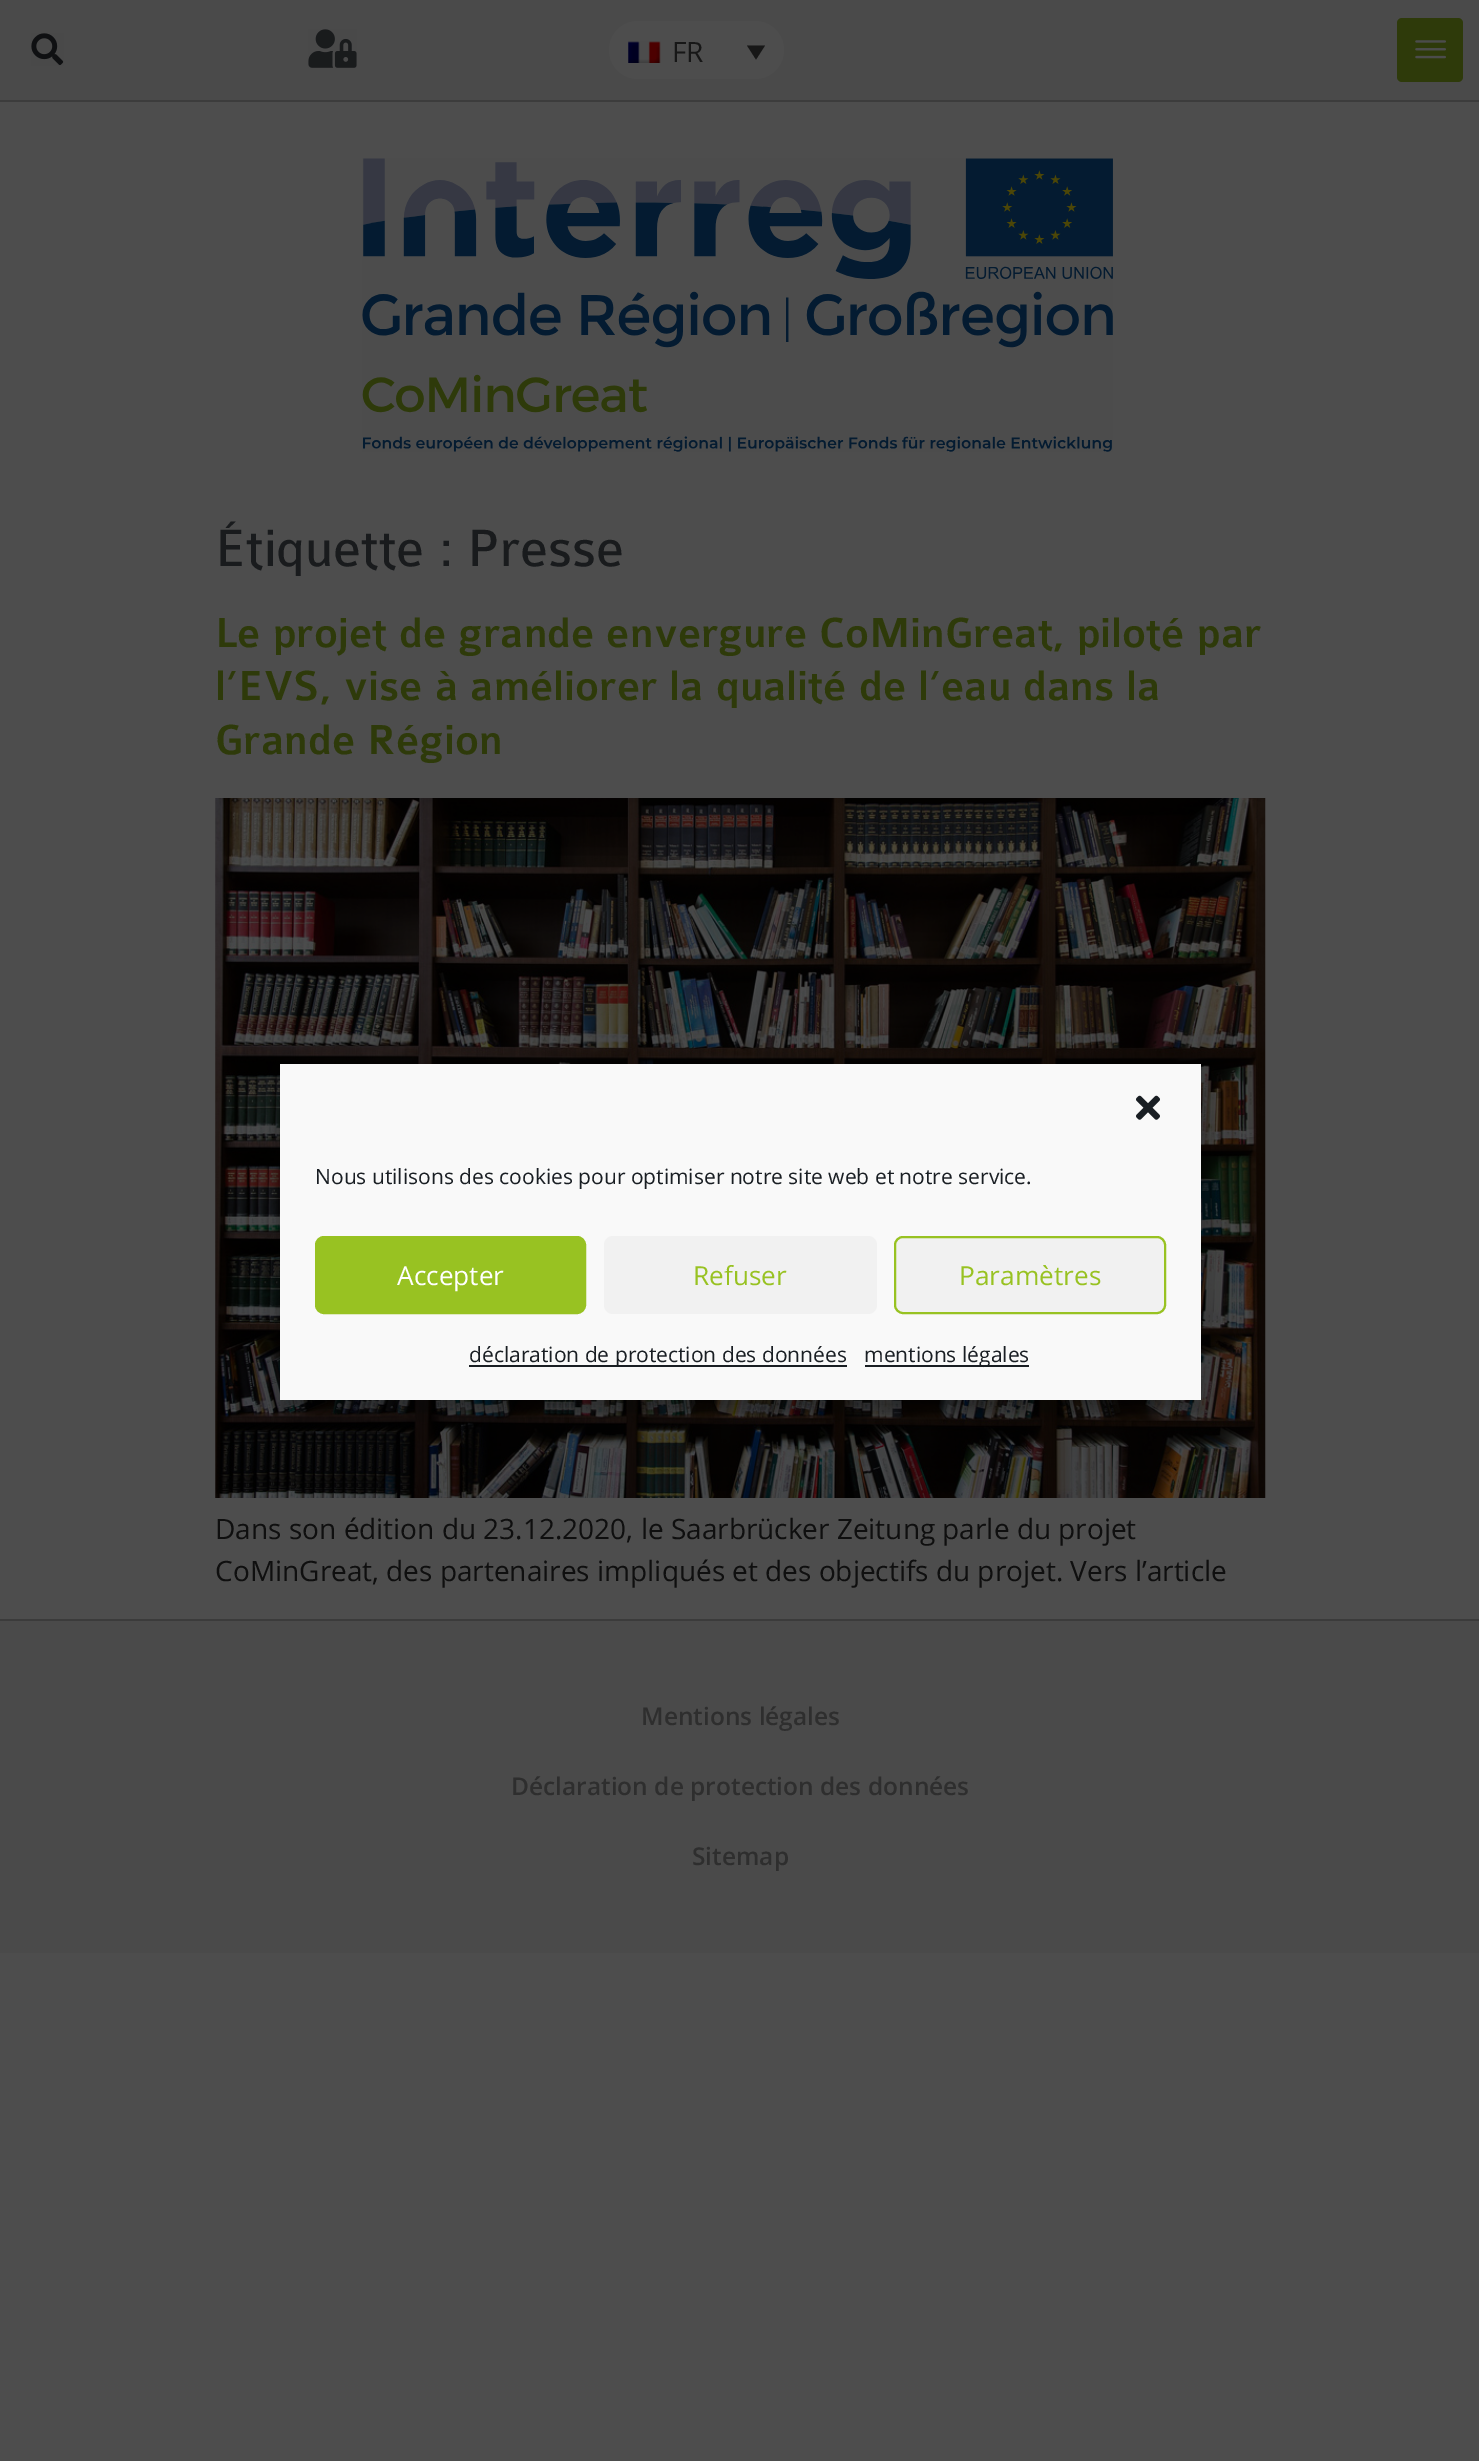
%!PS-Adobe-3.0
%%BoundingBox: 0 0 1479 2461
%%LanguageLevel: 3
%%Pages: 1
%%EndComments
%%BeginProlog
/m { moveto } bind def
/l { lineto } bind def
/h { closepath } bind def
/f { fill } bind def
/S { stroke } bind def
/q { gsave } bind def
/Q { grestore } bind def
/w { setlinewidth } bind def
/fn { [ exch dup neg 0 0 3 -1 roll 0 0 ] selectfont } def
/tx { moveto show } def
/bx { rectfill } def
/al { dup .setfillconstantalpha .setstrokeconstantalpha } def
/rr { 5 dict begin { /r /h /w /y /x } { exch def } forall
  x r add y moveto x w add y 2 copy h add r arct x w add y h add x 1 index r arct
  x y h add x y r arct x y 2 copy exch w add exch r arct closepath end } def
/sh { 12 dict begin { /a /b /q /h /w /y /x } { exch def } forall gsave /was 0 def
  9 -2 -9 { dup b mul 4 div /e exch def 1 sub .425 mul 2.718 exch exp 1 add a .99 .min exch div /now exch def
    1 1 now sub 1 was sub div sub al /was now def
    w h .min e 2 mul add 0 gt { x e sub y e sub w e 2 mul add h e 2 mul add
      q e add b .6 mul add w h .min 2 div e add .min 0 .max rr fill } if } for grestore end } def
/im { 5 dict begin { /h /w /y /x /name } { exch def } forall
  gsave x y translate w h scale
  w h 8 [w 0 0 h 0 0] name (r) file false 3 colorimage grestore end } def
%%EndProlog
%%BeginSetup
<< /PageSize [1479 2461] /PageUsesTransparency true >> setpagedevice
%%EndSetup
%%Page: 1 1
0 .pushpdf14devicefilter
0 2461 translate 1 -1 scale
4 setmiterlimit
0.302 setgray
0 0 1479 2461 bx
0.29 setgray
0 0 1479 100 bx
0.235 setgray
0 100 1479 2 bx
(image0.raw) 31 33 33 33 im
(image1.raw) 308 29 49 39 im
0.302 setgray
609 21 175 58 29 rr f
(image2.raw) 628 41 33 22 im
/OpenSans-Regular 28 fn
0.09 setgray
(FR) 672 62 tx
747 45.5 m 765 45.5 l 756 59.5 l h f
0.18 0.227 0.039 setrgbcolor
1397 18 66 64 5 rr f
(image3.raw) 1415 40 31 19 im
(image4.raw) 362 158 751 294 im
/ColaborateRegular-Regular 56 fn
0.098 0.106 0.114 setrgbcolor
(Étiquette : Presse) 215 566 tx
/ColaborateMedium-Medium 44.8 fn
0.18 0.227 0.039 setrgbcolor
(Le projet de grande envergure CoMinGreat, piloté par) 215 647 tx
(l’EVS, vise à améliorer la qualité de l’eau dans la) 215 700 tx
(Grande Région) 215 754 tx
(image5.raw) 215 798 1051 700 im
/OpenSans-Regular 28 fn
0.059 setgray
(Dans son édition du 23.12.2020, le Saarbrücker Zeitung parle du projet) 215 1539 tx
(CoMinGreat, des partenaires impliqués et des objectifs du projet. Vers l’article) 215 1581 tx
0 setgray
280 1075 921 336 0 5 0.23 sh
280 1082 921 336 0 17.5 0.19 sh
0.976 setgray
280 1064 921 336 bx
(image6.raw) 1136 1095 24 25 im
/OpenSans-Regular 21 fn
0.098 0.118 0.137 setrgbcolor
(Nous utilisons des cookies pour optimiser notre site web et notre service.) 315 1184 tx
0.596 0.761 0.133 setrgbcolor
316 1237 269 76 8 rr q f Q
2 w
S
/OpenSans-Regular 26.25 fn
1 setgray
(Accepter) 397 1285 tx
0.945 setgray
604 1236 273 78 9 rr f
0.596 0.761 0.133 setrgbcolor
(Refuser) 693 1285 tx
0.945 setgray
895 1237 270 76 8 rr q f Q
0.596 0.761 0.133 setrgbcolor
S
(Paramètres) 959 1285 tx
0.098 0.118 0.137 setrgbcolor
469 1365 378 2 bx
/OpenSans-Regular 21 fn
(déclaration de protection des données) 469 1362 tx
865 1365 164 2 bx
(mentions légales) 864 1362 tx
0.29 setgray
0 1621 1479 332 bx
0.231 setgray
0 1619 1479 2 bx
/OpenSans-SemiBold 24.5 fn
0.18 setgray
(Mentions légales) 641 1725 tx
(Déclaration de protection des données) 511 1795 tx
(Sitemap) 692 1865 tx
.poppdf14devicefilter showpage
%%EOF
